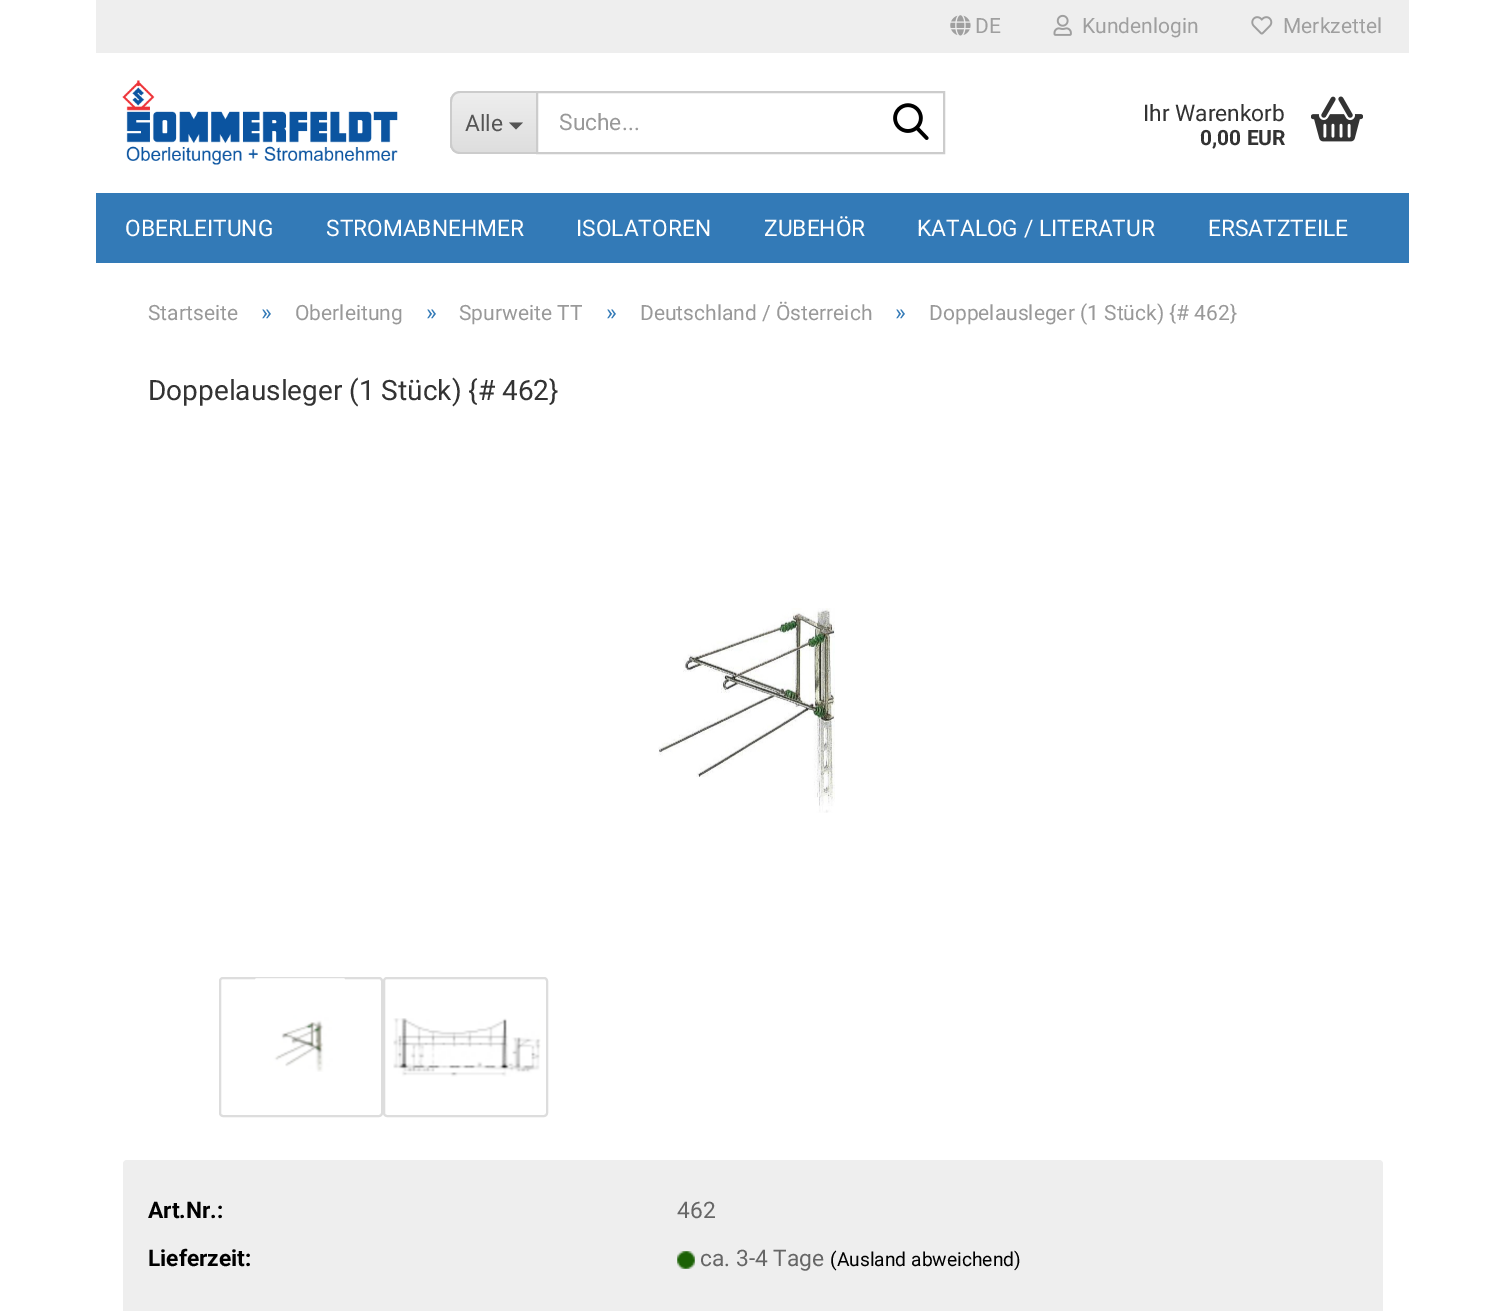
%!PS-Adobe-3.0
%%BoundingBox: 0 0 1502 1311
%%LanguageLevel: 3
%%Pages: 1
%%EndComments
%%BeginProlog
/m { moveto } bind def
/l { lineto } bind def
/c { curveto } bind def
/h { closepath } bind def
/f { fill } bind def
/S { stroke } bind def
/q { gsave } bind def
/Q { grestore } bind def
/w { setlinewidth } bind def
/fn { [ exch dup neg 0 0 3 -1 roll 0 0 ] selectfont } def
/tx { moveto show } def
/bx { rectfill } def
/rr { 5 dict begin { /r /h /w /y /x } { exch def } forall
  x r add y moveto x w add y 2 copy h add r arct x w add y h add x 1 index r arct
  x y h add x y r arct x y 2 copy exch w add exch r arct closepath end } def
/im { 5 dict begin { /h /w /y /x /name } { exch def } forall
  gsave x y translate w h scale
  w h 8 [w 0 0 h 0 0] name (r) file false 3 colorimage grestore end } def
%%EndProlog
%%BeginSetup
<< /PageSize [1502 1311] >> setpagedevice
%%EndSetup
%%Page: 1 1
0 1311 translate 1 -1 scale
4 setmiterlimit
1 setgray
0 0 1502 1311 bx
0.933 setgray
96 0 1313 53 bx
(image0.raw) 950 15 21 21 im
/Roboto-Regular 21 fn
0.624 setgray
(DE) 975 33 tx
(image1.raw) 1053 14 19 22 im
(Kundenlogin) 1082 33 tx
(image2.raw) 1251 16 22 19 im
(Merkzettel) 1283 33 tx
(image3.raw) 122 80 276 85 im
q
461 91 m 536 91 l 536 154 l 461 154 l 455 154 450 149 450 143 c 450 102 l 450 96 455 91 461 91 c h clip newpath
q 450 93 m 536 93 l 536 152 l 450 152 l h clip newpath
<< /ShadingType 2 /ColorSpace /DeviceRGB /Coords [494 93 494 152] /Extend [true true] /Function << /FunctionType 2 /Domain [0 1] /C0 [0.933 0.933 0.933] /C1 [0.871 0.871 0.871] /N 1 >> >> shfill Q
Q
0.8 setgray
460 91 m 536 91 l 536 154 l 460 154 l 454 154 450 149 450 144 c 450 102 l 450 96 454 91 460 91 c h 460 93 m 536 93 l 536 152 l 460 152 l 455 152 452 148 452 144 c 452 102 l 452 97 455 93 460 93 c h eofill
/Roboto-Regular 22.75 fn
0.333 setgray
(Alle) 465 131 tx
509 122.5 m 523 122.5 l 516 129.5 l h f
0.8 setgray
2 w
537 92 407 61 rectstroke
0.6 setgray
(Suche...) 559 130 tx
(image4.raw) 893 103 36 37 im
0.2 setgray
(Ihr Warenkorb) 1143 121 tx
/Roboto-Bold 21 fn
(0,00 EUR) 1200 145 tx
(image5.raw) 1311 96 52 46 im
0.2 0.478 0.718 setrgbcolor
96 193 1313 70 bx
/Roboto-Regular 22.75 fn
1 setgray
(OBERLEITUNG) 125 236 tx
(STROMABNEHMER) 326 236 tx
(ISOLATOREN) 576 236 tx
(ZUBEHÖR) 764 236 tx
(KATALOG / LITERATUR) 917 236 tx
(ERSATZTEILE) 1208 236 tx
/Roboto-Regular 21 fn
0.6 setgray
(Startseite) 148 320 tx
/Roboto-Regular 22.75 fn
0.2 0.478 0.718 setrgbcolor
(») 261 320 tx
/Roboto-Regular 21 fn
0.6 setgray
(Oberleitung) 295 320 tx
/Roboto-Regular 22.75 fn
0.2 0.478 0.718 setrgbcolor
(») 426 320 tx
/Roboto-Regular 21 fn
0.6 setgray
(Spurweite TT) 459 320 tx
/Roboto-Regular 22.75 fn
0.2 0.478 0.718 setrgbcolor
(») 606 320 tx
/Roboto-Regular 21 fn
0.6 setgray
(Deutschland / Österreich) 640 320 tx
/Roboto-Regular 22.75 fn
0.2 0.478 0.718 setrgbcolor
(») 895 320 tx
/Roboto-Regular 21 fn
0.6 setgray
(Doppelausleger \(1 Stück\) {# 462}) 929 320 tx
/Roboto-Regular 28 fn
0.2 setgray
(Doppelausleger \(1 Stück\) {# 462}) 148 400 tx
(image6.raw) 658 608 177 205 im
0.867 setgray
220 978 162 138 3 rr S
(image7.raw) 255 978 90 94 im
384 978 163 138 3 rr S
(image8.raw) 393 1018 148 59 im
0.933 setgray
123 1160 1260 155 4 rr f
/Roboto-Bold 22.75 fn
0 setgray
(Art.Nr.:) 148 1218 tx
/Roboto-Regular 22.75 fn
0.4 setgray
(462) 677 1218 tx
/Roboto-Bold 22.75 fn
0 setgray
(Lieferzeit:) 148 1266 tx
(image9.raw) 677 1251 18 18 im
/Roboto-Regular 22.75 fn
0.4 setgray
(ca. 3-4 Tage) 700 1266 tx
/Roboto-Regular 19.25 fn
0 setgray
(\(Ausland abweichend\)) 830 1266 tx
showpage
%%EOF
